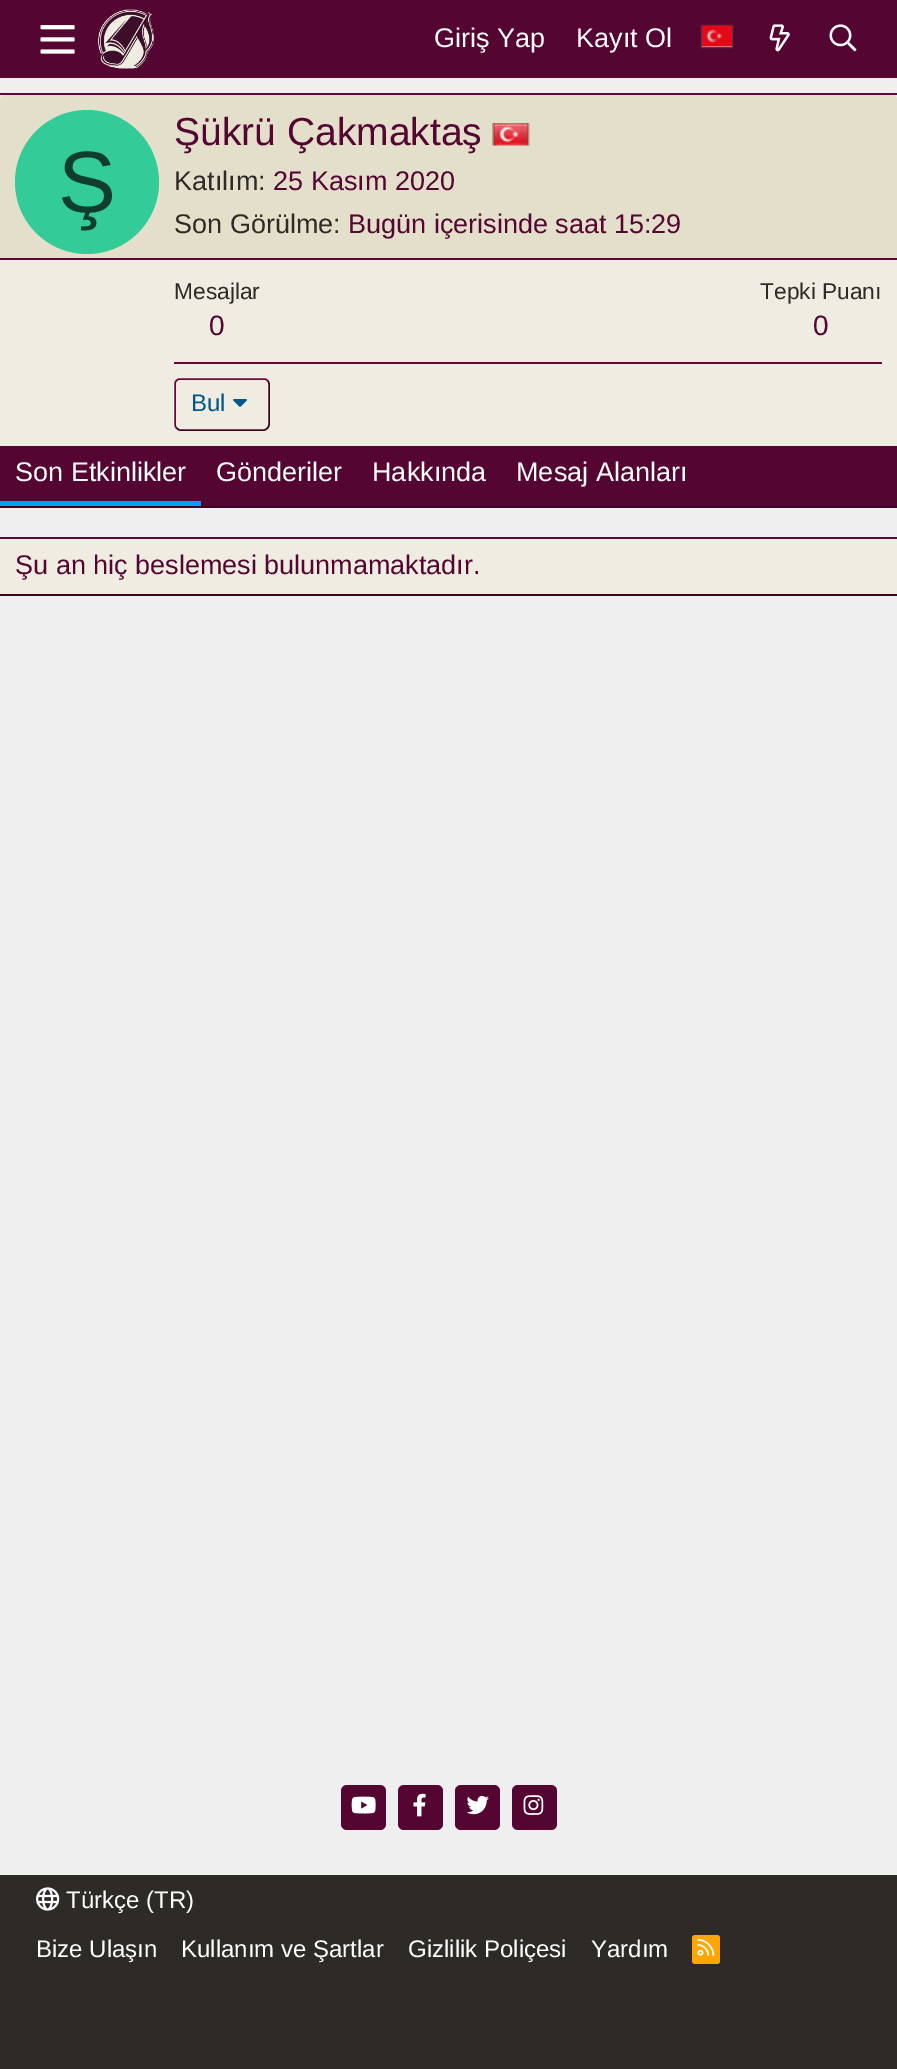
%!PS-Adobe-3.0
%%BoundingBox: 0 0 897 2069
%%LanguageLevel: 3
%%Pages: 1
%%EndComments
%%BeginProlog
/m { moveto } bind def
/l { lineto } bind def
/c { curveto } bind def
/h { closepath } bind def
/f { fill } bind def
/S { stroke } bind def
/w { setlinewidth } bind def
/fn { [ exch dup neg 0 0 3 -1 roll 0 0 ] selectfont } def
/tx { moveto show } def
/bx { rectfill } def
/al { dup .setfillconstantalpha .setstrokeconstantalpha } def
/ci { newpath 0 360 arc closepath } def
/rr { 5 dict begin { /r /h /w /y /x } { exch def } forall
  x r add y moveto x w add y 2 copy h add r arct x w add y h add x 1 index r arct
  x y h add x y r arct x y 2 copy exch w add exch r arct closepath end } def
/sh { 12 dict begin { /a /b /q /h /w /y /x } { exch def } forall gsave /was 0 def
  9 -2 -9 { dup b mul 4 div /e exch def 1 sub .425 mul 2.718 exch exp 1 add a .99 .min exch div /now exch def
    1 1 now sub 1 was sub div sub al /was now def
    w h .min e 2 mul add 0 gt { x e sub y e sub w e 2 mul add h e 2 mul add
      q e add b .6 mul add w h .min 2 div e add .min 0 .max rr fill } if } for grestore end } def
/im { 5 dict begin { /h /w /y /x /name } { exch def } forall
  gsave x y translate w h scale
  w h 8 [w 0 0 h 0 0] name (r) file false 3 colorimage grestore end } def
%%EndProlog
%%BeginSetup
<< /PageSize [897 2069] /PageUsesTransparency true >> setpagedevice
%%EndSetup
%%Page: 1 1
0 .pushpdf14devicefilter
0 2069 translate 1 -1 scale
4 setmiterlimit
0.937 setgray
0 0 897 2069 bx
0.329 0.02 0.196 setrgbcolor
0 0 897 78 bx
(image0.raw) 40 25 35 29 im
(image1.raw) 98 9 56 60 im
/LiberationSans-Regular 27 fn
1 setgray
(Giriş Yap) 434 47 tx
(Kayıt Ol) 576 47 tx
0.533 setgray
702 26 30 21 0 1 1 sh
0.859 setgray
702 46 30 1 bx
(image2.raw) 702 25 30 22 im
(image3.raw) 769 24 21 28 im
(image4.raw) 829 24 28 28 im
0.937 0.929 0.882 setrgbcolor
0 95 897 351 bx
0.384 0.024 0.231 setrgbcolor
0 93 897 2 bx
0.235 0.016 0.141 setrgbcolor
0 506 897 2 bx
0.89 0.875 0.792 setrgbcolor
5 95 m 892 95 l 895 95 897 97 897 100 c 897 260 l 0 260 l 0 100 l 0 97 2 95 5 95 c h f
0.384 0.024 0.231 setrgbcolor
0 258 897 2 bx
0.2 0.8 0.6 setrgbcolor
87 182 72 ci f
/LiberationSans-Regular 87 fn
0.059 0.239 0.18 setrgbcolor
(Ş) 58 212 tx
/LiberationSans-Regular 39 fn
0.329 0.02 0.196 setrgbcolor
(Şükrü Çakmaktaş) 174 145 tx
(image5.raw) 492 123 38 23 im
/LiberationSans-Regular 27 fn
0.18 0.165 0.149 setrgbcolor
(Katılım:) 174 190 tx
0.329 0.02 0.196 setrgbcolor
(25 Kasım 2020) 273 190 tx
0.18 0.165 0.149 setrgbcolor
(Son Görülme:) 174 233 tx
0.329 0.02 0.196 setrgbcolor
(Bugün içerisinde saat 15:29) 348 233 tx
/LiberationSans-Regular 22.75 fn
0.18 0.165 0.149 setrgbcolor
(Mesajlar) 174 299 tx
/LiberationSans-Regular 28 fn
0.329 0.02 0.196 setrgbcolor
(0) 209 335 tx
/LiberationSans-Regular 22.75 fn
0.18 0.165 0.149 setrgbcolor
(Tepki Puanı) 760 299 tx
/LiberationSans-Regular 28 fn
0.329 0.02 0.196 setrgbcolor
(0) 813 335 tx
0.384 0.024 0.231 setrgbcolor
174 362 708 2 bx
0.235 0.016 0.141 setrgbcolor
1.5 w
267.5 380.5 m 268.5 381.5 269 382.5 269 384 c 269 424.5 l 269 426 268.5 427 267.5 428 c 266.5 429 265.5 430 264 430 c 180 430 l 178.5 430 177.5 429 176.5 428 c S
0.424 0.024 0.251 setrgbcolor
176.5 428 m 175.5 427 175 426 175 424.5 c 175 384 l 175 382.5 175.5 381.5 176.5 380.5 c 177.5 379.5 178.5 379 180 379 c 264 379 l 265.5 379 266.5 379.5 267.5 380.5 c S
/LiberationSans-Regular 24 fn
0 0.337 0.549 setrgbcolor
(Bul) 191 411 tx
(image6.raw) 233 399 14 8 im
0.329 0.02 0.196 setrgbcolor
0 446 897 60 bx
0 0.616 1 setrgbcolor
0 501 201 5 bx
/LiberationSans-Regular 27 fn
1 setgray
(Son Etkinlikler) 15 481 tx
(Gönderiler) 216 481 tx
(Hakkında) 372 481 tx
(Mesaj Alanları) 516 481 tx
0.937 0.929 0.882 setrgbcolor
0 539 897 55 bx
0.384 0.024 0.231 setrgbcolor
0 537 897 2 bx
0.235 0.016 0.141 setrgbcolor
0 594 897 2 bx
0.329 0.02 0.196 setrgbcolor
(Şu an hiç beslemesi bulunmamaktadır.) 15 574 tx
341 1785 45 45 6 rr f
(image7.raw) 351 1796 25 18 im
398 1785 45 45 6 rr f
(image8.raw) 413 1793 13 24 im
455 1785 45 45 6 rr f
(image9.raw) 466 1795 23 20 im
512 1785 45 45 6 rr f
(image10.raw) 523 1795 21 20 im
0.18 0.165 0.149 setrgbcolor
0 1875 897 194 bx
(image11.raw) 36 1887 24 24 im
/LiberationSans-Regular 24 fn
1 setgray
(Türkçe \(TR\)) 66 1908 tx
(Bize Ulaşın) 36 1957 tx
(Kullanım ve Şartlar) 181 1957 tx
(Gizlilik Poliçesi) 408 1957 tx
(Yardım) 591 1957 tx
1 0.647 0 setrgbcolor
692 1935 28 29 3 rr f
(image12.raw) 697 1938 18 18 im
.poppdf14devicefilter showpage
%%EOF
